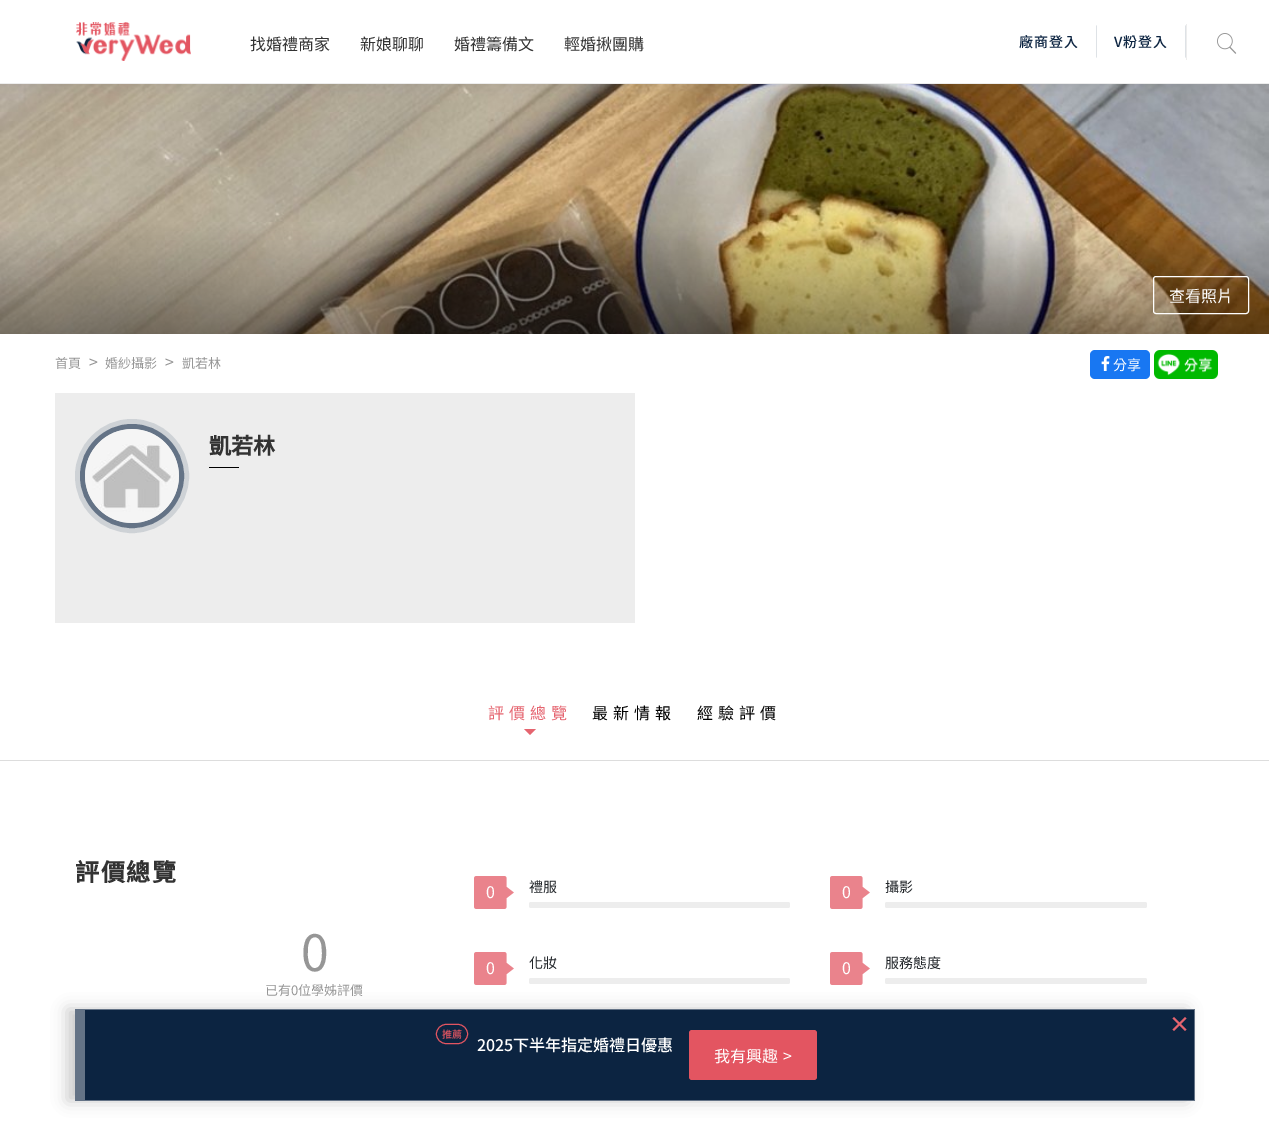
%!PS-Adobe-3.0
%%BoundingBox: 0 0 1269 1121
%%LanguageLevel: 3
%%Pages: 1
%%EndComments
%%BeginProlog
/m { moveto } bind def
/l { lineto } bind def
/h { closepath } bind def
/f { fill } bind def
/S { stroke } bind def
/w { setlinewidth } bind def
/fn { [ exch dup neg 0 0 3 -1 roll 0 0 ] selectfont } def
/tx { moveto show } def
/bx { rectfill } def
/al { dup .setfillconstantalpha .setstrokeconstantalpha } def
/ci { newpath 0 360 arc closepath } def
/rr { 5 dict begin { /r /h /w /y /x } { exch def } forall
  x r add y moveto x w add y 2 copy h add r arct x w add y h add x 1 index r arct
  x y h add x y r arct x y 2 copy exch w add exch r arct closepath end } def
/sh { 12 dict begin { /a /b /q /h /w /y /x } { exch def } forall gsave /was 0 def
  9 -2 -9 { dup b mul 4 div /e exch def 1 sub .425 mul 2.718 exch exp 1 add a .99 .min exch div /now exch def
    1 1 now sub 1 was sub div sub al /was now def
    w h .min e 2 mul add 0 gt { x e sub y e sub w e 2 mul add h e 2 mul add
      q e add b .6 mul add w h .min 2 div e add .min 0 .max rr fill } if } for grestore end } def
/im { 5 dict begin { /h /w /y /x /name } { exch def } forall
  gsave x y translate w h scale
  w h 8 [w 0 0 h 0 0] name (r) file false 3 colorimage grestore end } def
%%EndProlog
%%BeginSetup
<< /PageSize [1269 1121] /PageUsesTransparency true >> setpagedevice
%%EndSetup
%%Page: 1 1
0 .pushpdf14devicefilter
0 1121 translate 1 -1 scale
4 setmiterlimit
1 setgray
0 0 1269 1121 bx
(image2.raw) 0 84 1269 250 im
0.49 setgray
0 0 1269 84 0 10 0.2 sh
1 setgray
0 0 1269 83 bx
0.929 setgray
0 83 1269 1 bx
(image0.raw) 76 22 115 39 im
/NotoSansTC-Regular 16 fn
0.2 setgray
(找婚禮商家) 250 50 tx
(新娘聊聊) 360 50 tx
(婚禮籌備文) 454 50 tx
(輕婚揪團購) 564 50 tx
0.871 0.886 0.902 setrgbcolor
1097 25 m 1097 58 l 1096 57 l 1096 26 l h f
/NotoSansTC-Medium 14 fn
0.047 0.141 0.255 setrgbcolor
1019 47 m 1 0 (廠商登入) ashow
0.871 0.886 0.902 setrgbcolor
1186 25 m 1186 58 l 1185 57 l 1185 26 l h f
0.047 0.141 0.255 setrgbcolor
1114 47 m 1 0 (V粉登入) ashow
0.929 setgray
1186 24 1 36 bx
(image1.raw) 1217 33 20 21 im
1 setgray
1153.5 276.5 95 37 2.5 rr S
/NotoSansTC-Regular 16 fn
(查看照片) 1169 302 tx
/NotoSansTC-Regular 13 fn
0.588 setgray
(首頁) 55 368 tx
/NotoSansTC-Regular 16 fn
(>) 89 368 tx
/NotoSansTC-Regular 13 fn
(婚紗攝影) 105 368 tx
/NotoSansTC-Regular 16 fn
(>) 165 368 tx
/NotoSansTC-Regular 13 fn
(凱若林) 182 368 tx
0.094 0.467 0.949 setrgbcolor
1090 350 60 29 5 rr f
(image3.raw) 1101 356 9 15 im
/NotoSansTC-Regular 14 fn
1 setgray
(分享) 1113 370 tx
(image4.raw) 1154 350 64 29 im
0.929 setgray
55 393 580 230 bx
0.808 0.824 0.839 setrgbcolor
10 w
132 476 52 ci S
0.392 0.451 0.525 setrgbcolor
5 w
132 476 49.5 ci S
(image5.raw) 85 429 94 94 im
/NotoSansTC-Bold 22 fn
0.2 setgray
(凱若林) 209 454 tx
0 setgray
209 467 30 1 bx
0.867 setgray
0 760 1269 1 bx
/NotoSansTC-Regular 16 fn
0.898 0.392 0.435 setrgbcolor
488 719 m 5 0 (評價總覽) ashow
524 729 m 536 729 l 530 735 l h f
0 setgray
592 719 m 5 0 (最新情報) ashow
697 719 m 5 0 (經驗評價) ashow
/NotoSansTC-Bold 24 fn
0.2 setgray
75 881 m 1.5 0 (評價總覽) ashow
/NotoSansTC-Regular 50 fn
0.588 setgray
(0) 301 971 tx
/NotoSansTC-Regular 13 fn
(已有0位學姊評價) 265 995 tx
(image6.raw) 474 876 40 33 im
/NotoSansTC-Regular 16 fn
1 setgray
(0) 486 898 tx
/NotoSansTC-Regular 14 fn
0.129 0.145 0.161 setrgbcolor
(禮服) 529 892 tx
0.929 setgray
529 902 261 6 2 rr f
(image6.raw) 830 876 40 33 im
/NotoSansTC-Regular 16 fn
1 setgray
(0) 842 898 tx
/NotoSansTC-Regular 14 fn
0.129 0.145 0.161 setrgbcolor
(攝影) 885 892 tx
0.929 setgray
885 902 262 6 2 rr f
(image6.raw) 474 952 40 33 im
/NotoSansTC-Regular 16 fn
1 setgray
(0) 486 974 tx
/NotoSansTC-Regular 14 fn
0.129 0.145 0.161 setrgbcolor
(化妝) 529 968 tx
0.929 setgray
529 978 261 6 2 rr f
(image6.raw) 830 952 40 33 im
/NotoSansTC-Regular 16 fn
1 setgray
(0) 842 974 tx
/NotoSansTC-Regular 14 fn
0.129 0.145 0.161 setrgbcolor
(服務態度) 885 968 tx
0.929 setgray
885 978 262 6 2 rr f
0 setgray
67 1009 1120 92 0 7.5 0.2 sh
0.047 0.141 0.255 setrgbcolor
85 1010 1109 90 bx
0.392 0.451 0.525 setrgbcolor
85 1009 1110 1 bx
1194 1009 1 92 bx
85 1100 1110 1 bx
75 1009 10 92 bx
0.898 0.392 0.435 setrgbcolor
1185 1017 m 1186.5 1018.5 l 1174 1031 l 1172.5 1029.5 l h f
1172.5 1018.5 m 1174 1017 l 1186.5 1029.5 l 1185 1031 l h f
0.89 0.333 0.38 setrgbcolor
0.9 w
436.45 1024.45 31.1 19.1 9.55 rr S
/NotoSansTC-Medium 10 fn
(推薦) 442 1038 tx
/NotoSansTC-Medium 16 fn
1 setgray
(2025下半年指定婚禮日優惠) 477 1051 tx
0.89 0.333 0.38 setrgbcolor
689 1030 128 50 3 rr f
/NotoSansTC-Regular 16 fn
1 setgray
(我有興趣) 714 1062 tx
(>) 783 1062 tx
.poppdf14devicefilter showpage
%%EOF
